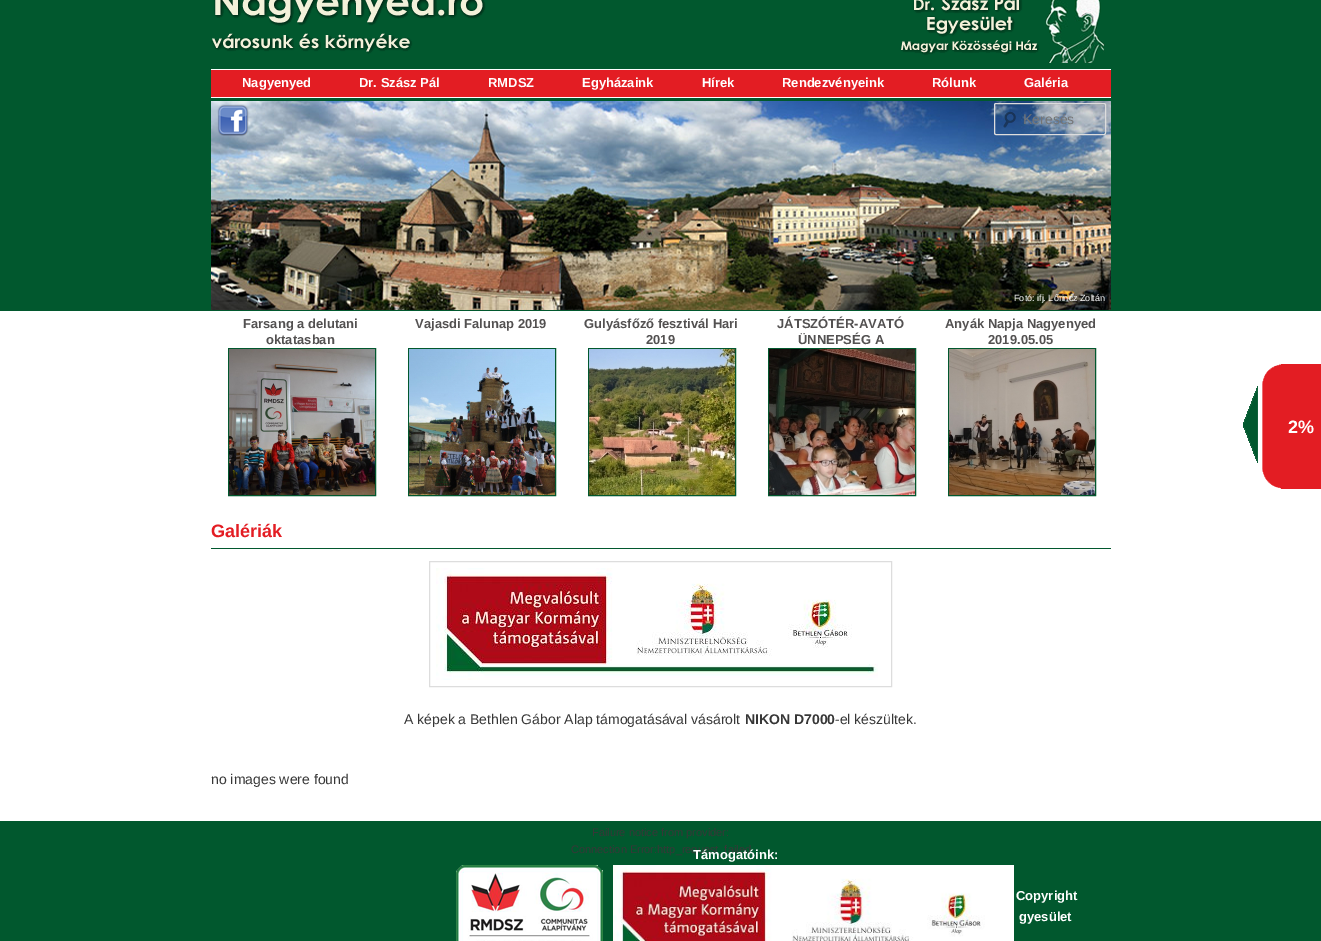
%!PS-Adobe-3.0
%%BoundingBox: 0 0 1321 941
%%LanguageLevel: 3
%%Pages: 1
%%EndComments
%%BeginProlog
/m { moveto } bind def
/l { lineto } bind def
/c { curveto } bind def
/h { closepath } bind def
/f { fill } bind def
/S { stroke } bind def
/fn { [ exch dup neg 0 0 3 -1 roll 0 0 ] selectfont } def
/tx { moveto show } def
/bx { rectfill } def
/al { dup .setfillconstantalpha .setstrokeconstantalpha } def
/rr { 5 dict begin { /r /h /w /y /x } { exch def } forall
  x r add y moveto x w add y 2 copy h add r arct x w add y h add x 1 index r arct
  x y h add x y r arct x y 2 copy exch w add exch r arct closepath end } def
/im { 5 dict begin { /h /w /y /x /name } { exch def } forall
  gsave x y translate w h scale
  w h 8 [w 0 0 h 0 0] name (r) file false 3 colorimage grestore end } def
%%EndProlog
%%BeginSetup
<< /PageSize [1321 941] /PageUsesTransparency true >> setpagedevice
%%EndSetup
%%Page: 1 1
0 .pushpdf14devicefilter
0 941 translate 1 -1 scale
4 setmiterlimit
1 setgray
0 0 1321 941 bx
0.004 0.345 0.18 setrgbcolor
0 0 1321 311 bx
(image0.raw) 211 0 894 63 im
0.89 0.114 0.137 setrgbcolor
211 70 900 27 bx
1 setgray
211 69 900 1 bx
211 97 900 1 bx
/LiberationSans-Bold 13 fn
(Nagyenyed) 242 87 tx
(Dr. Szász Pál) 359 87 tx
(RMDSZ) 488 87 tx
(Egyházaink) 582 87 tx
(Hírek) 702 87 tx
(Rendezvényeink) 782 87 tx
(Rólunk) 932 87 tx
(Galéria) 1024 87 tx
(image1.raw) 211 101 900 209 im
(image2.raw) 217 104 32 33 im
(image3.raw) 1003 111 13 17 im
0.1 al
0 setgray
996 105 m 1105 105 l 1105 106 l 1105 99 1090 104 1086 104 c 996 104 l 995 106 l 995 105 995 105 996 105 c h f
1 al
0.867 setgray
994.5 103.5 111 31 1.5 rr S
/LiberationSans-Regular 14 fn
0.459 setgray
(Keresés) 1023 124 tx
/LiberationSans-Regular 9 fn
1 setgray
(Fotó: ifj. Lőrincz Zoltán) 1014 301 tx
/LiberationSans-Bold 13 fn
0.325 0.318 0.318 setrgbcolor
(Farsang a delutani) 243 328 tx
(oktatasban) 266 344 tx
0.004 0.345 0.18 setrgbcolor
228.5 348.5 147 147 rectstroke
(image4.raw) 229 349 146 146 im
0.325 0.318 0.318 setrgbcolor
(Vajasdi Falunap 2019) 415 328 tx
0.004 0.345 0.18 setrgbcolor
408.5 348.5 147 147 rectstroke
(image5.raw) 409 349 146 146 im
0.325 0.318 0.318 setrgbcolor
(Gulyásfőző fesztivál Hari) 584 328 tx
(2019) 646 344 tx
0.004 0.345 0.18 setrgbcolor
588.5 348.5 147 147 rectstroke
(image6.raw) 589 349 146 146 im
0.325 0.318 0.318 setrgbcolor
(JÁTSZÓTÉR-AVATÓ) 777 328 tx
(ÜNNEPSÉG A) 798 344 tx
0.004 0.345 0.18 setrgbcolor
768.5 348.5 147 147 rectstroke
(image7.raw) 769 349 146 146 im
0.325 0.318 0.318 setrgbcolor
(Anyák Napja Nagyenyed) 945 328 tx
(2019.05.05) 988 344 tx
0.004 0.345 0.18 setrgbcolor
948.5 348.5 147 147 rectstroke
(image8.raw) 949 349 146 146 im
211 548 900 1 bx
/LiberationSans-Bold 18 fn
0.89 0.114 0.137 setrgbcolor
(Galériák) 211 537 tx
0.867 setgray
429.5 561.5 462 125 rectstroke
(image9.raw) 436 568 442 112 im
/LiberationSans-Regular 14 fn
0.216 setgray
(A képek a Bethlen Gábor Alap támogatásával vásárolt) 404 724 tx
/LiberationSans-Bold 14 fn
(NIKON D7000) 745 724 tx
/LiberationSans-Regular 14 fn
(-el készültek.) 835 724 tx
(no images were found) 211 784 tx
0.004 0.345 0.18 setrgbcolor
0 821 1321 120 bx
/LiberationSans-Regular 11 fn
0.216 setgray
(Failure notice from provider:) 592 836 tx
(Connection Error:http_request_failed) 571 853 tx
/LiberationSans-Bold 13 fn
1 setgray
(Támogatóink:) 693 859 tx
(image10.raw) 456 865 147 76 im
(image11.raw) 613 865 401 76 im
(Copyright) 1016 900 tx
(gyesület) 1019 921 tx
(image12.raw) 1243 386 15 77 im
(image13.raw) 1262 364 19 125 im
0.89 0.114 0.137 setrgbcolor
1281 364 40 125 bx
/LiberationSans-Bold 18 fn
1 setgray
(2%) 1288 433 tx
.poppdf14devicefilter showpage
%%EOF
